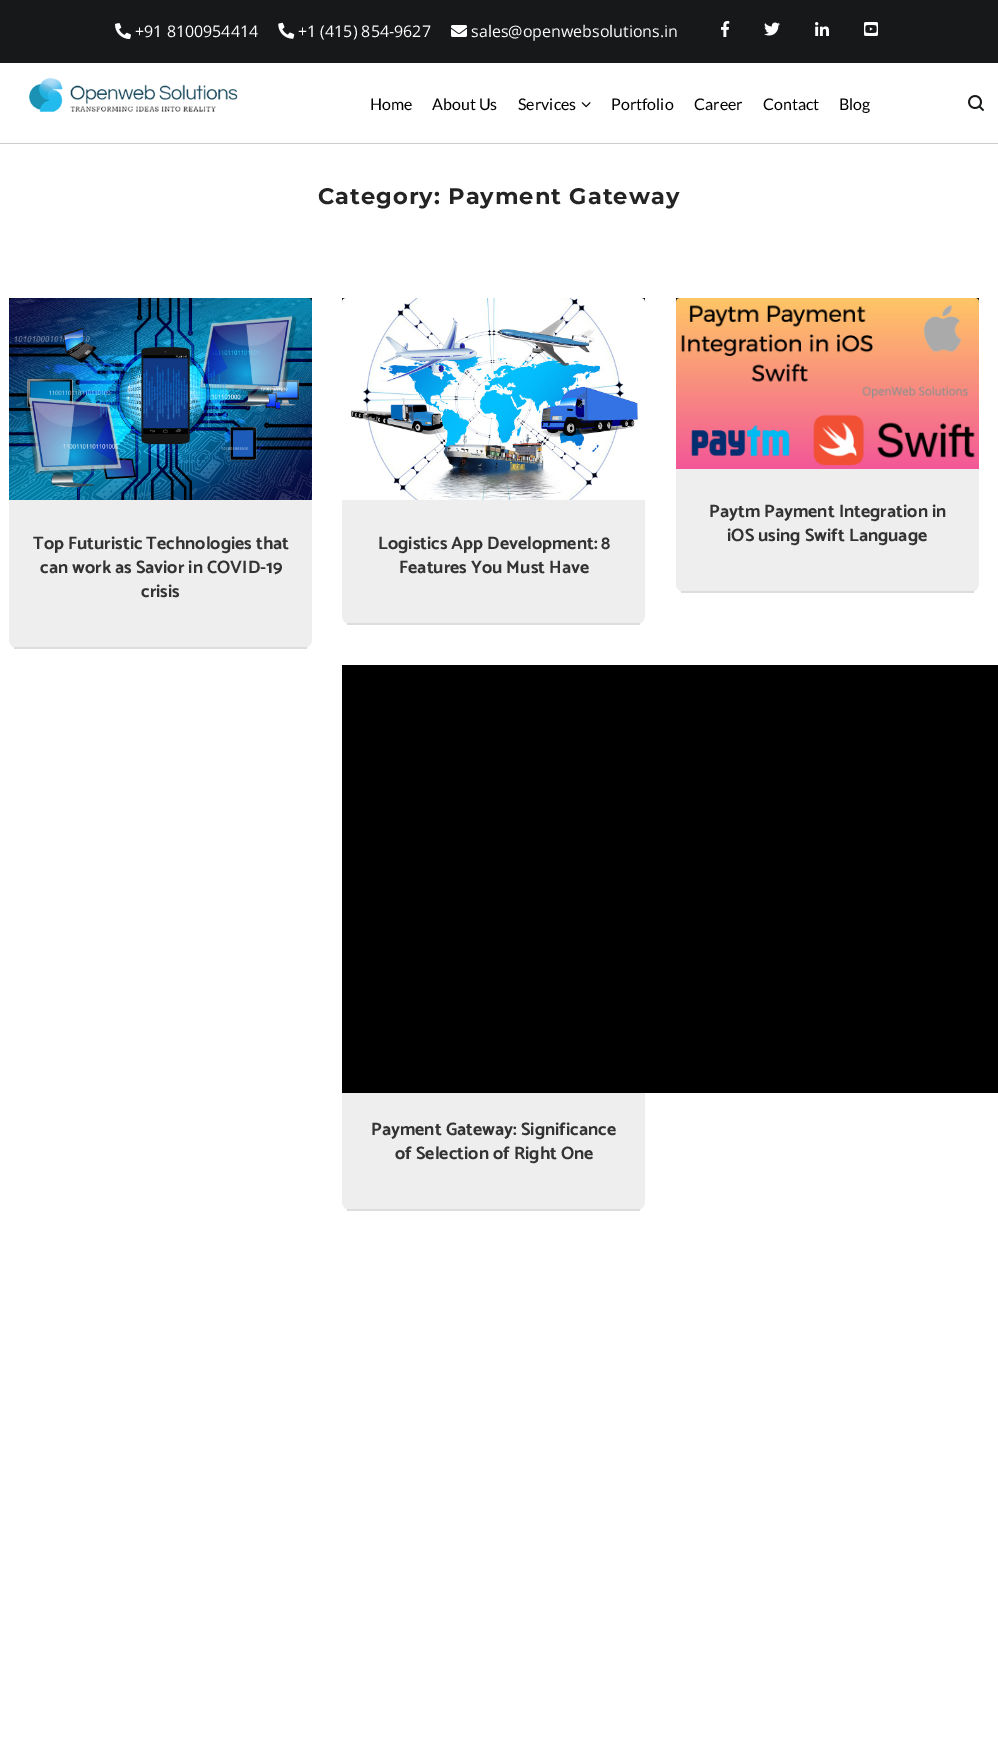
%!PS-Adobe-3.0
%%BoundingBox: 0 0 998 1745
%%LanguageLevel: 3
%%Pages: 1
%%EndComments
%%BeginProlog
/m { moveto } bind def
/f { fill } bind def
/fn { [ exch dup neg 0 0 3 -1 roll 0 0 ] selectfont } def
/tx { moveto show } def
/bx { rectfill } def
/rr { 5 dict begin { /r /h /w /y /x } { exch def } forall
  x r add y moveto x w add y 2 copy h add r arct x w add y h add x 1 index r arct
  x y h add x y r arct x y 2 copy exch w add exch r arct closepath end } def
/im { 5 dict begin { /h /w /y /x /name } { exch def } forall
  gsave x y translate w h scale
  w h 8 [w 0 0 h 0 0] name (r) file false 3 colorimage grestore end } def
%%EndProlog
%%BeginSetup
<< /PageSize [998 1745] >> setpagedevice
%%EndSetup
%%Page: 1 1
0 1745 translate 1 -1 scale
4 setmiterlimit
1 setgray
0 0 998 1745 bx
0.086 0.094 0.102 setrgbcolor
0 0 998 63 bx
(image0.raw) 115 23 16 16 im
/OpenSans-Regular 16 fn
1 setgray
(+91 8100954414) 135 37 tx
(image1.raw) 278 22 17 17 im
(+1 \(415\) 854-9627) 298 37 tx
(image2.raw) 451 25 16 12 im
(sales@openwebsolutions.in) 471 37 tx
(image3.raw) 721 21 9 16 im
(image4.raw) 764 22 16 14 im
(image5.raw) 815 22 14 14 im
(image6.raw) 864 22 14 14 im
0.8 setgray
0 143 998 1 bx
(image7.raw) 29 78 209 34 im
/Lato-Regular 16 fn
0 setgray
(Home) 370 110 tx
(About Us) 432 110 tx
(Services) 518 110 tx
(image8.raw) 581 102 10 6 im
(Portfolio) 611 110 tx
(Career) 694 110 tx
(Contact) 763 110 tx
(Blog) 839 110 tx
(image9.raw) 968 95 16 16 im
/Montserrat-Bold 22.5 fn
0.141 setgray
318 204 m 1 0 (Category: Payment Gateway) ashow
0.937 0.933 0.933 setrgbcolor
676 298 303 295 10 rr f
0.867 setgray
681 591 293 2 bx
0 setgray
676 298 303 4 bx
(image10.raw) 676 298 303 171 im
/Catamaran-Thin 18 fn
0.2 setgray
(Paytm Payment Integration in) 709 517 tx
(iOS using Swift Language) 727 541 tx
0.937 0.933 0.933 setrgbcolor
9 298 303 351 10 rr f
0.867 setgray
14 647 293 2 bx
0 setgray
9 298 303 4 bx
(image11.raw) 9 298 303 202 im
0.2 setgray
(Top Futuristic Technologies that) 33 549 tx
(can work as Savior in COVID-19) 40 573 tx
(crisis) 141 597 tx
0.937 0.933 0.933 setrgbcolor
342 298 303 327 10 rr f
0.867 setgray
347 623 293 2 bx
0 setgray
342 298 303 4 bx
(image12.raw) 342 298 303 202 im
0.2 setgray
(Logistics App Development: 8) 378 549 tx
(Features You Must Have) 399 573 tx
0.937 0.933 0.933 setrgbcolor
342 665 303 546 10 rr f
0.867 setgray
347 1209 293 2 bx
0 setgray
342 665 656 428 bx
0.2 setgray
(Payment Gateway: Significance) 371 1135 tx
(of Selection of Right One) 395 1159 tx
showpage
%%EOF
